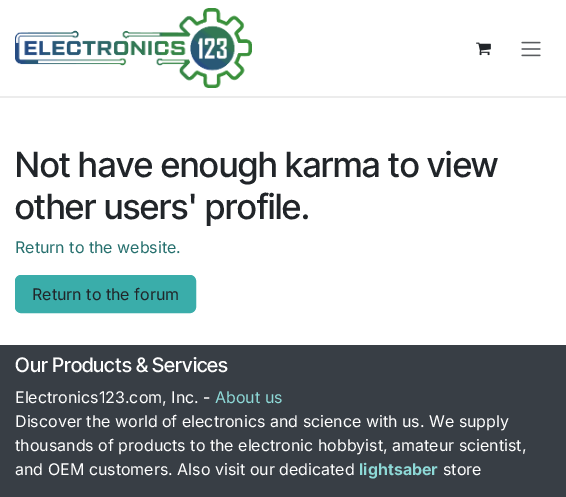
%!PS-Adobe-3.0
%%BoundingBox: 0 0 566 497
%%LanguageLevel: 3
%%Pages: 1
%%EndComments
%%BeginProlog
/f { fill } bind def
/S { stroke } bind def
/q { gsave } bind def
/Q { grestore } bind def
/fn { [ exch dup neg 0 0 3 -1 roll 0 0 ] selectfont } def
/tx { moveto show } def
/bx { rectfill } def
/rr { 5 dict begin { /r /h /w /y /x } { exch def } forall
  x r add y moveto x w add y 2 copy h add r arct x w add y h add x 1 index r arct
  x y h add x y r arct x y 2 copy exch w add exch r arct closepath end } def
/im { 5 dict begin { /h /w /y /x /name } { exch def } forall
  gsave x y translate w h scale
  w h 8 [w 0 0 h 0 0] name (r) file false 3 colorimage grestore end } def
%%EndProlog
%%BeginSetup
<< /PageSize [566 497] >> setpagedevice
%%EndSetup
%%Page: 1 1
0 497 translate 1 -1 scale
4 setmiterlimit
1 setgray
0 0 566 497 bx
0.925 setgray
0 96 566 2 bx
(image0.raw) 15 8 237 80 im
(image1.raw) 476 42 15 14 im
(image2.raw) 521 41 20 16 im
/InterTight-Medium 34.75 fn
0.129 0.145 0.161 setrgbcolor
(Not have enough karma to view) 15 177 tx
(other users' profile.) 15 219 tx
/Inter-Regular 16 fn
0.149 0.439 0.431 setrgbcolor
(Return to the website.) 15 253 tx
0.227 0.678 0.667 setrgbcolor
15.5 275.5 180 37 5.5 rr q f Q
S
0.129 0.145 0.161 setrgbcolor
(Return to the forum) 32 300 tx
0.22 0.243 0.271 setrgbcolor
0 345 566 152 bx
/InterTight-Medium 20 fn
1 setgray
(Our Products & Services) 15 372 tx
/Inter-Regular 16 fn
(Electronics123.com, Inc. -) 15 403 tx
0.557 0.851 0.843 setrgbcolor
(About us) 215 403 tx
1 setgray
(Discover the world of electronics and science with us. We supply) 15 427 tx
(thousands of products to the electronic hobbyist, amateur scientist,) 15 451 tx
(and OEM customers. Also visit our dedicated) 15 475 tx
/Inter-Bold 16 fn
0.557 0.851 0.843 setrgbcolor
(lightsaber) 359 475 tx
/Inter-Regular 16 fn
1 setgray
(store) 443 475 tx
showpage
%%EOF
